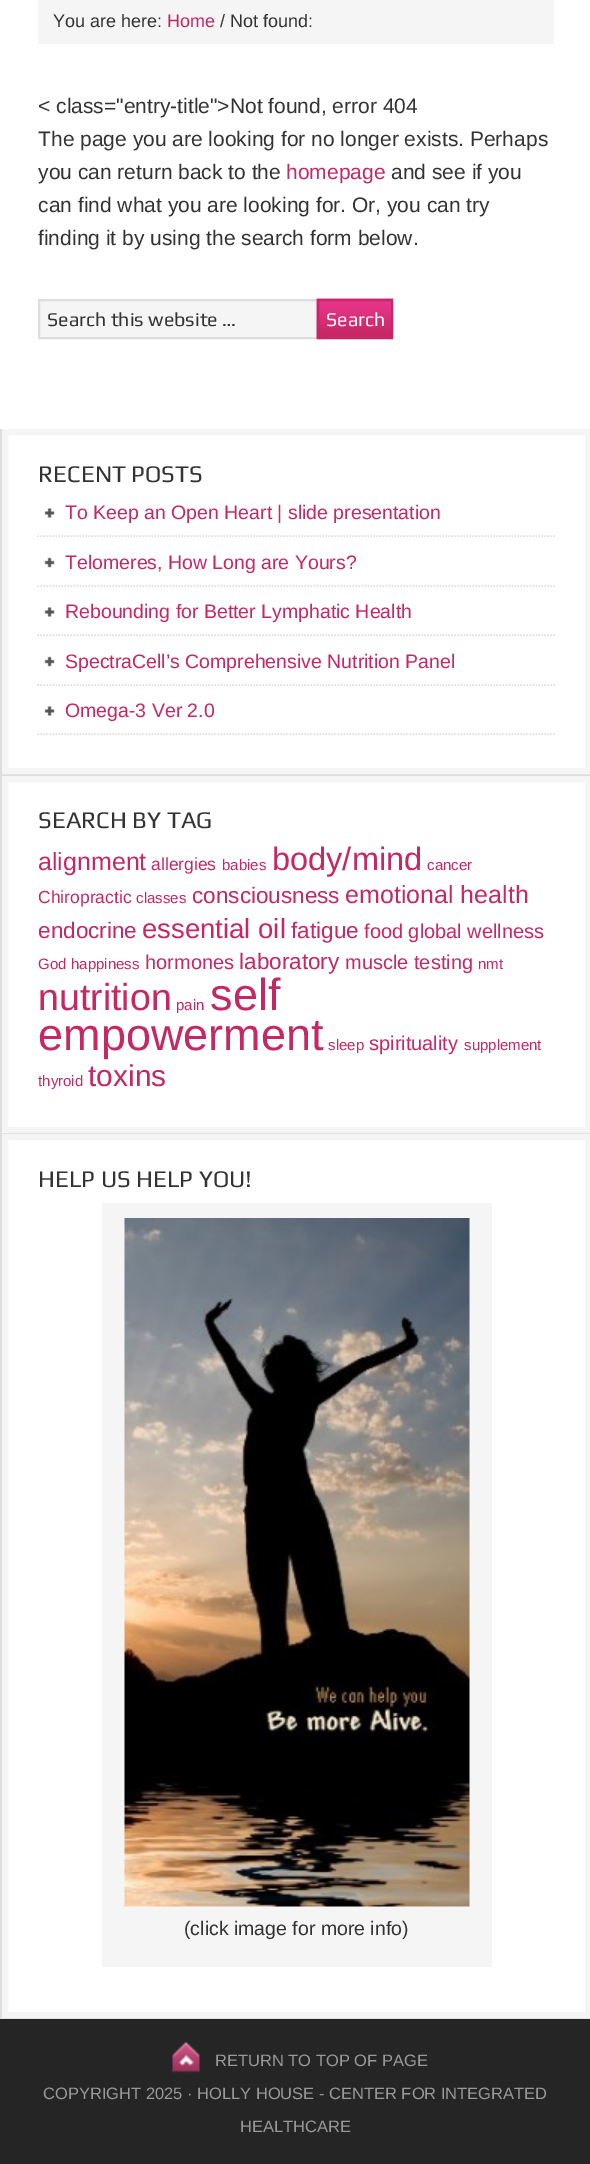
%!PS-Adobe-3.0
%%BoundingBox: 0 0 590 2164
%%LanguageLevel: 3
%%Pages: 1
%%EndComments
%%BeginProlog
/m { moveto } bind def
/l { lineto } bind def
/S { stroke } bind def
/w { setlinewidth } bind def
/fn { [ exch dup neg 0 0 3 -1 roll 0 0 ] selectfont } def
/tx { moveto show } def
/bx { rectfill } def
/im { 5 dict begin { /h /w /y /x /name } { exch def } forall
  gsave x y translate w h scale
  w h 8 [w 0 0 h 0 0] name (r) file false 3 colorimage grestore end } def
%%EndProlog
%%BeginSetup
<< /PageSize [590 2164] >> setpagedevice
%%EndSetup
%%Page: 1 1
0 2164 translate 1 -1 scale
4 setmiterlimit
1 setgray
0 0 590 2164 bx
0.961 setgray
38 0 516 44 bx
/LiberationSans-Regular 18 fn
0.2 setgray
(You are here:) 53 27 tx
0.776 0.153 0.396 setrgbcolor
(Home) 167 27 tx
0.2 setgray
(/ Not found:) 220 27 tx
/LiberationSans-Regular 21 fn
(< class="entry-title">Not found, error 404) 38 113 tx
(The page you are looking for no longer exists. Perhaps) 38 146 tx
(you can return back to the) 38 179 tx
0.776 0.153 0.396 setrgbcolor
(homepage) 286 179 tx
0.2 setgray
(and see if you) 391 179 tx
(can find what you are looking for. Or, you can try) 38 212 tx
(finding it by using the search form below.) 38 245 tx
0.961 setgray
40 301 277 36 bx
0.867 setgray
2 w
39 300 286 38 rectstroke
/Play-Regular 19.5 fn
0.2 setgray
(Search this website …) 47 326 tx
(image0.raw) 316 298 77 41 im
0.776 0.153 0.396 setrgbcolor
318 300 74 38 rectstroke
1 setgray
(Search) 326 326 tx
0.867 setgray
0 774 590 2 bx
0 429 2 347 bx
0.961 setgray
6 w
5 432 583 339 rectstroke
/Play-Regular 24 fn
0.2 setgray
(RECENT POSTS) 38 482 tx
(image1.raw) 44 508 11 10 im
0.867 setgray
1.5 w
[1.5 1.5] 0 setdash
37.5 536 m 555 536 l S
/LiberationSans-Regular 19.5 fn
0.776 0.153 0.396 setrgbcolor
(To Keep an Open Heart | slide presentation) 65 519 tx
(image2.raw) 44 557 11 11 im
0.867 setgray
37.5 586 m 555 586 l S
0.776 0.153 0.396 setrgbcolor
(Telomeres, How Long are Yours?) 65 569 tx
(image1.raw) 44 607 11 10 im
0.867 setgray
37.5 635 m 555 635 l S
0.776 0.153 0.396 setrgbcolor
(Rebounding for Better Lymphatic Health) 65 618 tx
(image2.raw) 44 656 11 11 im
0.867 setgray
37.5 685 m 555 685 l S
0.776 0.153 0.396 setrgbcolor
(SpectraCell’s Comprehensive Nutrition Panel) 65 668 tx
(image1.raw) 44 706 11 10 im
0.867 setgray
37.5 734 m 555 734 l S
0.776 0.153 0.396 setrgbcolor
(Omega-3 Ver 2.0) 65 717 tx
0.867 setgray
0 1133 590 1 bx
0 776 2 358 bx
0.961 setgray
6 w
[] 0 setdash
5 779 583 351 rectstroke
/Play-Regular 24 fn
0.2 setgray
(SEARCH BY TAG) 38 828 tx
/LiberationSans-Regular 25 fn
0.776 0.153 0.396 setrgbcolor
(alignment) 38 870 tx
/LiberationSans-Regular 17.5 fn
(allergies) 151 870 tx
/LiberationSans-Regular 15 fn
(babies) 222 870 tx
/LiberationSans-Regular 32.5 fn
(body/mind) 272 870 tx
/LiberationSans-Regular 15 fn
(cancer) 427 870 tx
/LiberationSans-Regular 17.5 fn
(Chiropractic) 38 903 tx
/LiberationSans-Regular 15 fn
(classes) 136 903 tx
/LiberationSans-Regular 22.5 fn
(consciousness) 192 903 tx
/LiberationSans-Regular 25 fn
(emotional health) 345 903 tx
/LiberationSans-Regular 22.5 fn
(endocrine) 38 938 tx
/LiberationSans-Regular 27.5 fn
(essential oil) 142 938 tx
/LiberationSans-Regular 22.5 fn
(fatigue) 291 938 tx
/LiberationSans-Regular 20 fn
(food global wellness) 364 938 tx
/LiberationSans-Regular 15 fn
(God) 38 969 tx
(happiness) 71 969 tx
/LiberationSans-Regular 20 fn
(hormones) 145 969 tx
/LiberationSans-Regular 22.5 fn
(laboratory) 239 969 tx
/LiberationSans-Regular 20 fn
(muscle testing) 345 969 tx
/LiberationSans-Regular 15 fn
(nmt) 478 969 tx
/LiberationSans-Regular 37.5 fn
(nutrition) 38 1010 tx
/LiberationSans-Regular 15 fn
(pain) 176 1010 tx
/LiberationSans-Regular 45 fn
(self) 210 1010 tx
(empowerment) 38 1050 tx
/LiberationSans-Regular 15 fn
(sleep) 328 1050 tx
/LiberationSans-Regular 20 fn
(spirituality) 369 1050 tx
/LiberationSans-Regular 15 fn
(supplement) 464 1050 tx
(thyroid) 38 1086 tx
/LiberationSans-Regular 30 fn
(toxins) 88 1086 tx
0.867 setgray
0 2018 590 1 bx
0 1134 2 885 bx
0.961 setgray
5 1137 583 878 rectstroke
/Play-Regular 24 fn
0.2 setgray
(HELP US HELP YOU!) 38 1187 tx
0.961 setgray
102 1203 390 764 bx
(image3.raw) 124 1218 346 689 im
/LiberationSans-Regular 19.5 fn
0.2 setgray
(\(click image for more info\)) 184 1935 tx
0.145 setgray
0 2019 590 145 bx
(image4.raw) 171 2041 30 33 im
/LiberationSans-Regular 16.5 fn
0.6 setgray
(RETURN TO TOP OF PAGE) 215 2066 tx
(COPYRIGHT 2025 · HOLLY HOUSE - CENTER FOR INTEGRATED) 43 2099 tx
(HEALTHCARE) 240 2132 tx
showpage
%%EOF
